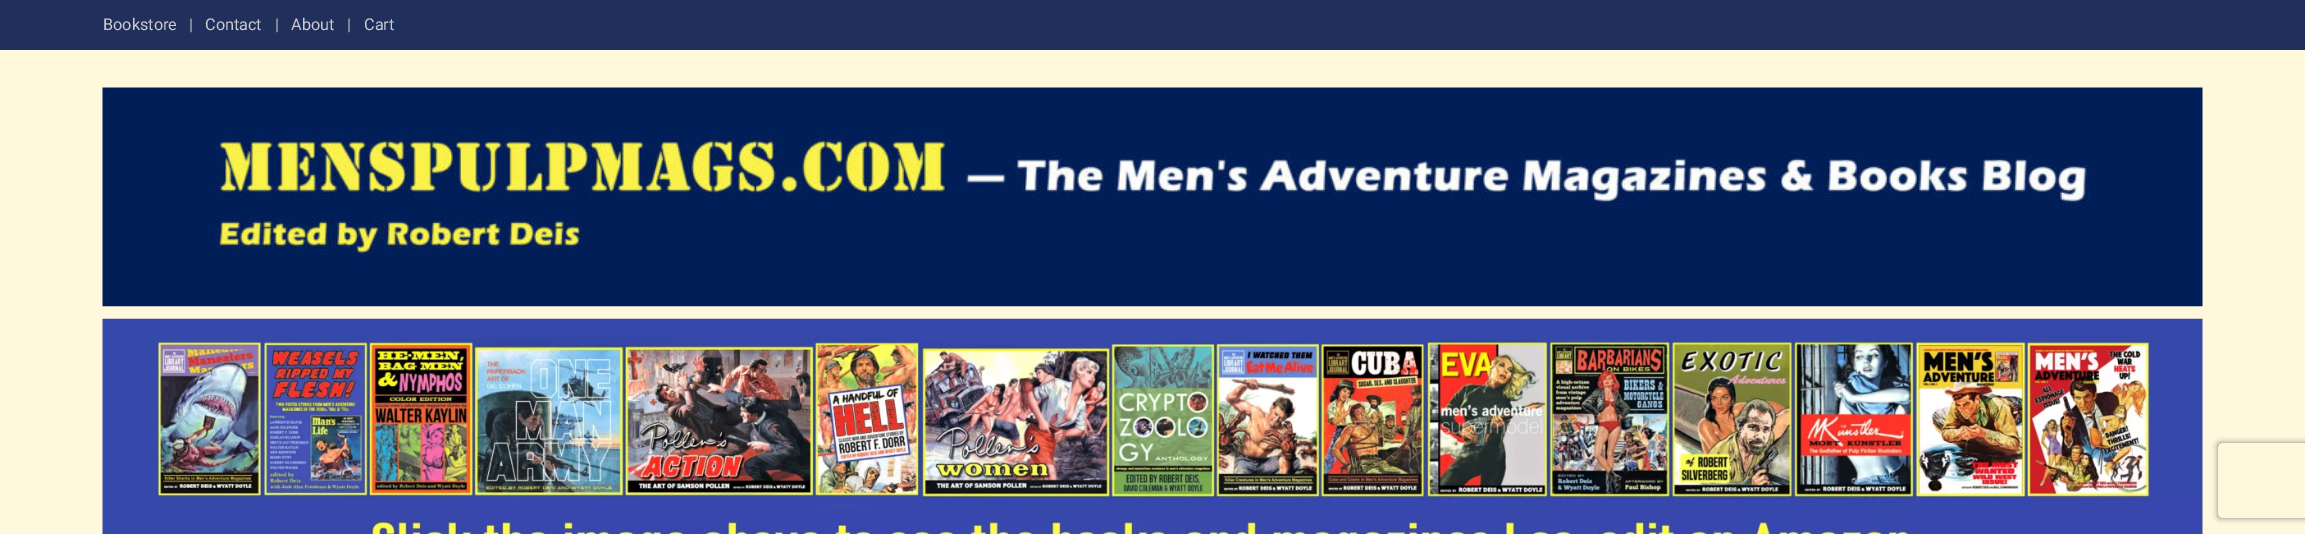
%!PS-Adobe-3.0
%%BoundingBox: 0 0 2305 534
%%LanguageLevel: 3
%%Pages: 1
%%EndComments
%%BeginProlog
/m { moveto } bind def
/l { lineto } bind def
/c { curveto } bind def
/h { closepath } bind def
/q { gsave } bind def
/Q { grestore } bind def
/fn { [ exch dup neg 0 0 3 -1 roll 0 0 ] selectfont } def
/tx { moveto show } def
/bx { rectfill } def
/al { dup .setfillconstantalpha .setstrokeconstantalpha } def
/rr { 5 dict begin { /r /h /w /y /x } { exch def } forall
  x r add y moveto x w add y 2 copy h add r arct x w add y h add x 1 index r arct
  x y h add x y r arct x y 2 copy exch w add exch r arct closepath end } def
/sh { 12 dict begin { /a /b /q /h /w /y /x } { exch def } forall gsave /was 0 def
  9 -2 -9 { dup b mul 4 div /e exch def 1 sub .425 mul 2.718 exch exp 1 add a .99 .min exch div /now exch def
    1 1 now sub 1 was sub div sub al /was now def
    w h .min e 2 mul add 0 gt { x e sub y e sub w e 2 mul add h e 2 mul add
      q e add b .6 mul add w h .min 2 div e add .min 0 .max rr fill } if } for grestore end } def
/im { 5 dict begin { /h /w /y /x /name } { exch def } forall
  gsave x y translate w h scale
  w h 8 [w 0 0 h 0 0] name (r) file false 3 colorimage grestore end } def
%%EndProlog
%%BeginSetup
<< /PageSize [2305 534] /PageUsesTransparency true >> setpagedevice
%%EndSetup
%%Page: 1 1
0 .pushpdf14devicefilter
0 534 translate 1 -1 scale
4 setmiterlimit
1 0.973 0.863 setrgbcolor
0 0 2305 534 bx
0.125 0.184 0.357 setrgbcolor
0 0 2305 50 bx
/Roboto-Regular 16.25 fn
0.8 setgray
(Bookstore) 103 30 tx
(|) 189 30 tx
(Contact) 205 30 tx
(|) 275 30 tx
(About) 291 30 tx
(|) 347 30 tx
(Cart) 364 30 tx
(image0.raw) 102 87 2101 220 im
(image1.raw) 102 318 2101 216 im
q
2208 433 m 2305 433 l 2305 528 l 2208 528 l h 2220.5 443 m 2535.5 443 l 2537 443 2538 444 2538 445.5 c 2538 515.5 l 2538 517 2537 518 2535.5 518 c 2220.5 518 l 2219 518 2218 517 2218 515.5 c 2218 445.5 l 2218 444 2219 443 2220.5 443 c h eoclip newpath
0.502 setgray
2218 443 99 75 2.5 3 1 sh
Q
.poppdf14devicefilter showpage
%%EOF
